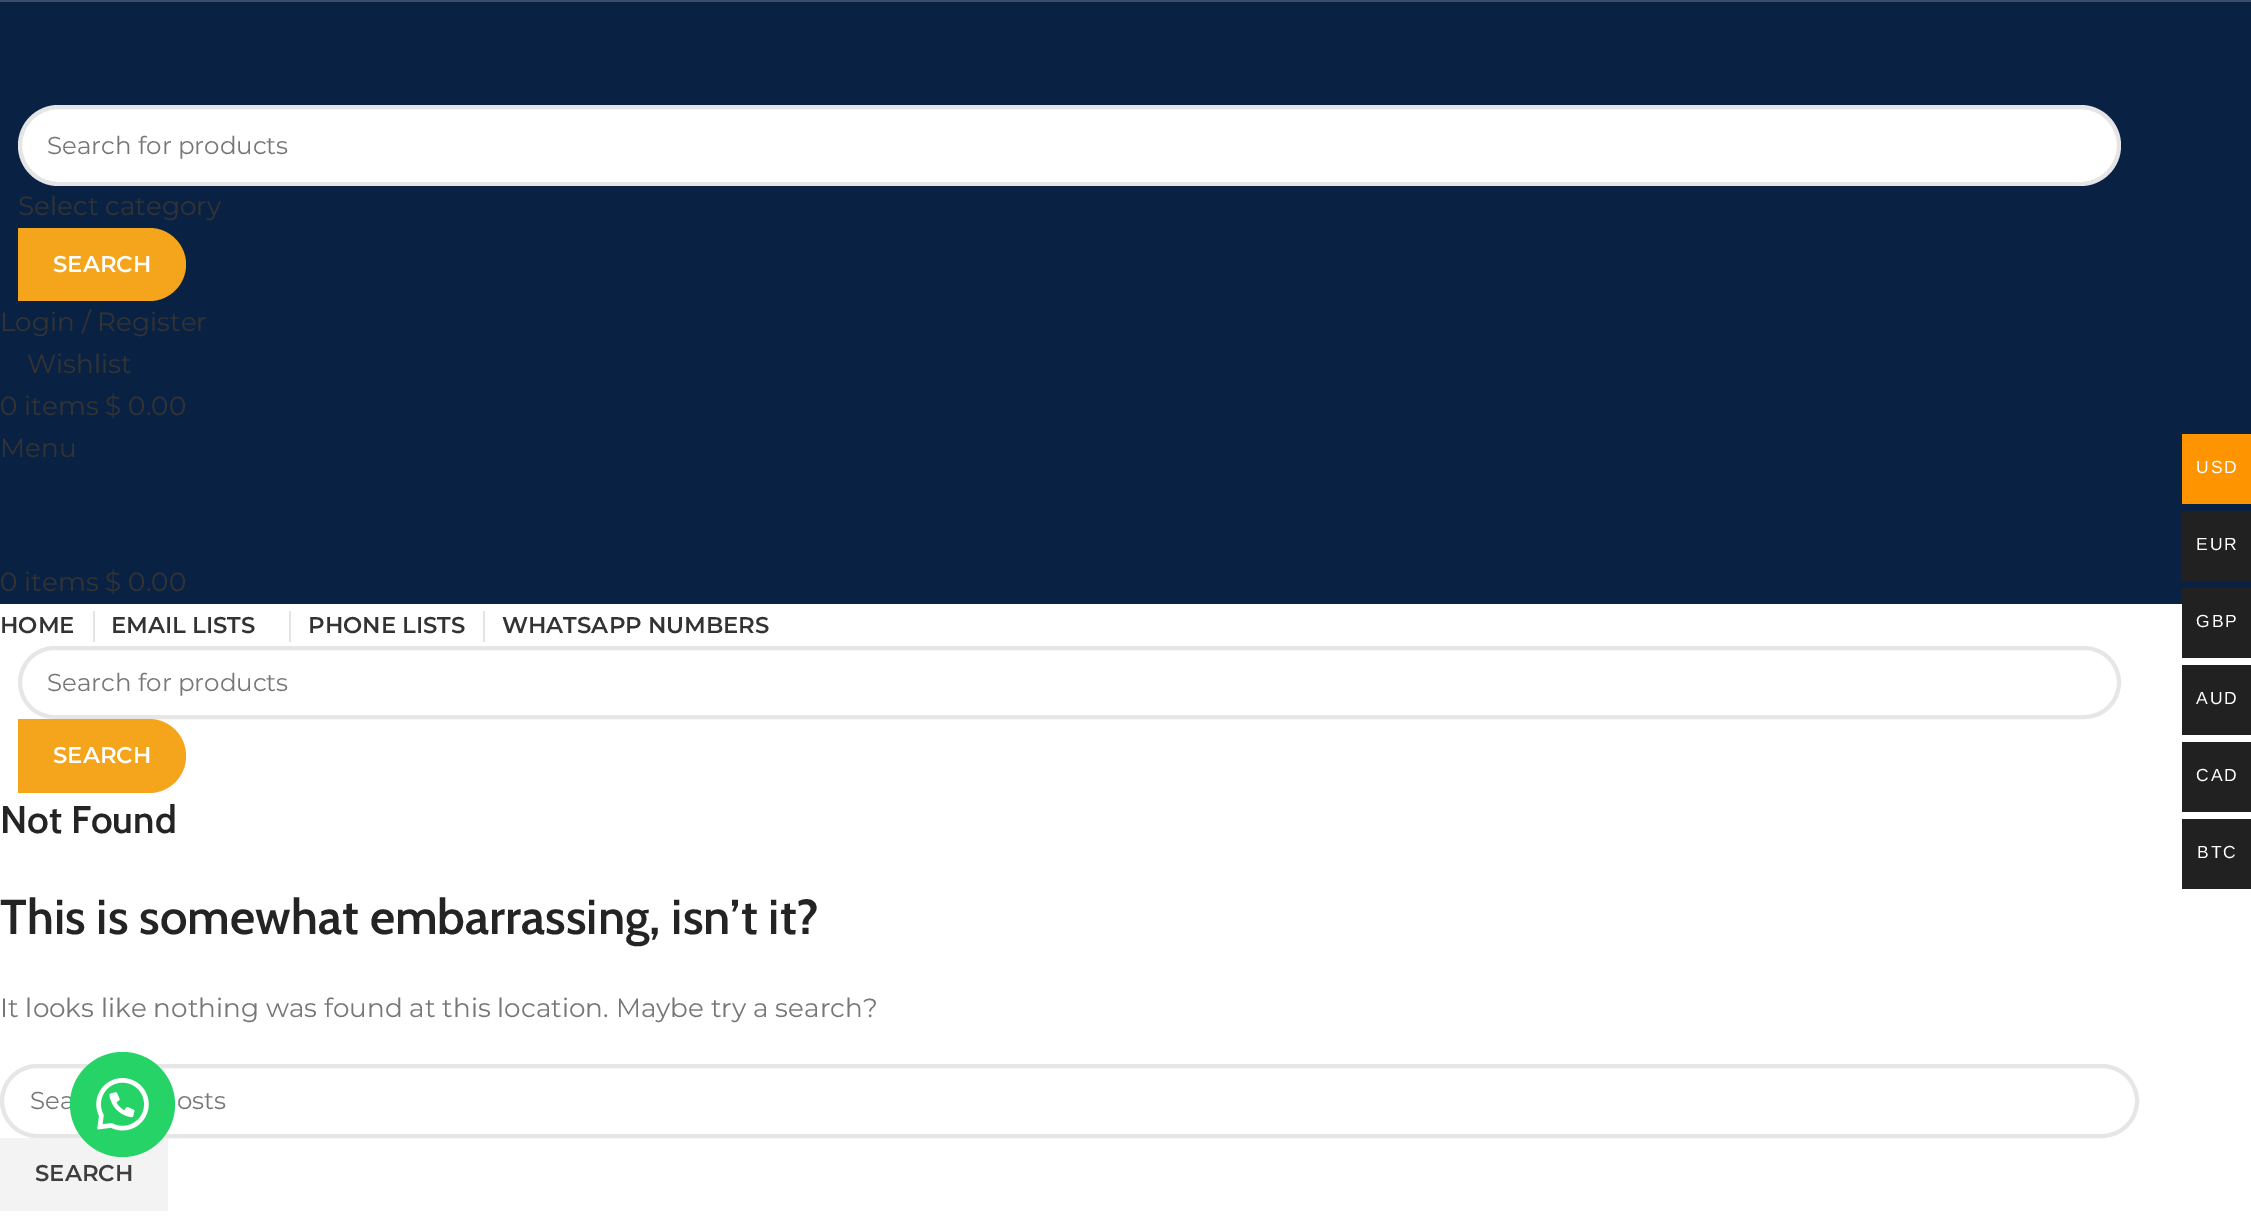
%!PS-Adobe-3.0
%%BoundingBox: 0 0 2251 1226
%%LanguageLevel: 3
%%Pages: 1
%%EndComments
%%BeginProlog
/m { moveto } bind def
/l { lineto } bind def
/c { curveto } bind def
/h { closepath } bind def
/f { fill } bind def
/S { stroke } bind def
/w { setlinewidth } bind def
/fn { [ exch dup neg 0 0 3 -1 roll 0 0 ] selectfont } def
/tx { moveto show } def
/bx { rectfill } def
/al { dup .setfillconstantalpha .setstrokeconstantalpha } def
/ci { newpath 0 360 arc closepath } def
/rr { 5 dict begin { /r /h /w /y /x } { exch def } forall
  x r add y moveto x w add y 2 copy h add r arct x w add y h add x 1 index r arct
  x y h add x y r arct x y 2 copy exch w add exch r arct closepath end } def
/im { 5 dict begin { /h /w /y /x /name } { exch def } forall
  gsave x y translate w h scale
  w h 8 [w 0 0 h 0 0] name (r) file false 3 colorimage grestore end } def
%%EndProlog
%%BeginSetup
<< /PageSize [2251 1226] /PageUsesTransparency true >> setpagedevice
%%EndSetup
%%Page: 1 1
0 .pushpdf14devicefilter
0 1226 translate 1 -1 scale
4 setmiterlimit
1 setgray
0 0 2251 1226 bx
0.227 0.302 0.412 setrgbcolor
0 0 2251 2 bx
0.035 0.129 0.263 setrgbcolor
0 2 2251 602 bx
1 setgray
18 105 2103 81 40.5 rr f
0.1 al
0 setgray
4 w
20 107 2099 77 38.5 rr S
/Montserrat-Regular 24.5 fn
1 al
0.467 setgray
(Search for products) 47 154 tx
/Montserrat-Regular 26.25 fn
0.2 setgray
(Select category) 18 215 tx
0.957 0.647 0.11 setrgbcolor
18 228 m 149.5 228 l 169.5 228 186 244.5 186 264.5 c 186 284.5 169.5 301 149.5 301 c 18 301 l h f
/Montserrat-SemiBold 22.75 fn
1 setgray
(SEARCH) 53 272 tx
/Montserrat-Regular 26.25 fn
0.2 setgray
(Login / Register) 0 331 tx
(Wishlist) 27 373 tx
(0 items $ 0.00) 0 415 tx
(Menu) 0 457 tx
(0 items $ 0.00) 0 591 tx
/Montserrat-SemiBold 22.75 fn
(HOME) 0 633 tx
0.894 setgray
93 611 2 31 bx
0.2 setgray
(EMAIL LISTS) 111 633 tx
0.894 setgray
289 611 2 31 bx
0.2 setgray
(PHONE LISTS) 308 633 tx
0.894 setgray
483 611 2 31 bx
0.2 setgray
(WHATSAPP NUMBERS) 502 633 tx
0.902 setgray
20 648 2099 69 34.5 rr S
/Montserrat-Regular 24.5 fn
0.467 setgray
(Search for products) 47 691 tx
0.957 0.647 0.11 setrgbcolor
18 719 m 149 719 l 169.5 719 186 735.5 186 756 c 186 776.5 169.5 793 149 793 c 18 793 l h f
/Montserrat-SemiBold 22.75 fn
1 setgray
(SEARCH) 53 763 tx
/Cabin-SemiBold 38.5 fn
0.141 setgray
(Not Found) 0 833 tx
/Cabin-SemiBold 49 fn
(This is somewhat embarrassing, isn’t it?) 0 934 tx
/Montserrat-Regular 26.25 fn
0.467 setgray
(It looks like nothing was found at this location. Maybe try a search?) 0 1017 tx
0.902 setgray
2 1066 2135 70 35 rr S
/Montserrat-Regular 24.5 fn
0.467 setgray
(Sea) 30 1109 tx
(osts) 177 1109 tx
0.953 setgray
0 1138 168 73 bx
/Montserrat-SemiBold 22.75 fn
0.243 setgray
(SEARCH) 35 1181 tx
0.996 0.584 0 setrgbcolor
2182 434 69 70 bx
/LiberationSans-Regular 17.5 fn
1 setgray
2196 473 m 2 0 (USD) ashow
0.129 setgray
2182 511 69 70 bx
1 setgray
2196 550 m 2 0 (EUR) ashow
0.129 setgray
2182 588 69 70 bx
1 setgray
2196 627 m 2 0 (GBP) ashow
0.129 setgray
2182 665 69 70 bx
1 setgray
2196 704 m 2 0 (AUD) ashow
0.129 setgray
2182 742 69 70 bx
1 setgray
2196 781 m 2 0 (CAD) ashow
0.129 setgray
2182 819 69 70 bx
1 setgray
2197 858 m 2 0 (BTC) ashow
0.145 0.827 0.4 setrgbcolor
122.5 1104.5 52.5 ci f
(image0.raw) 96 1078 53 53 im
.poppdf14devicefilter showpage
%%EOF
